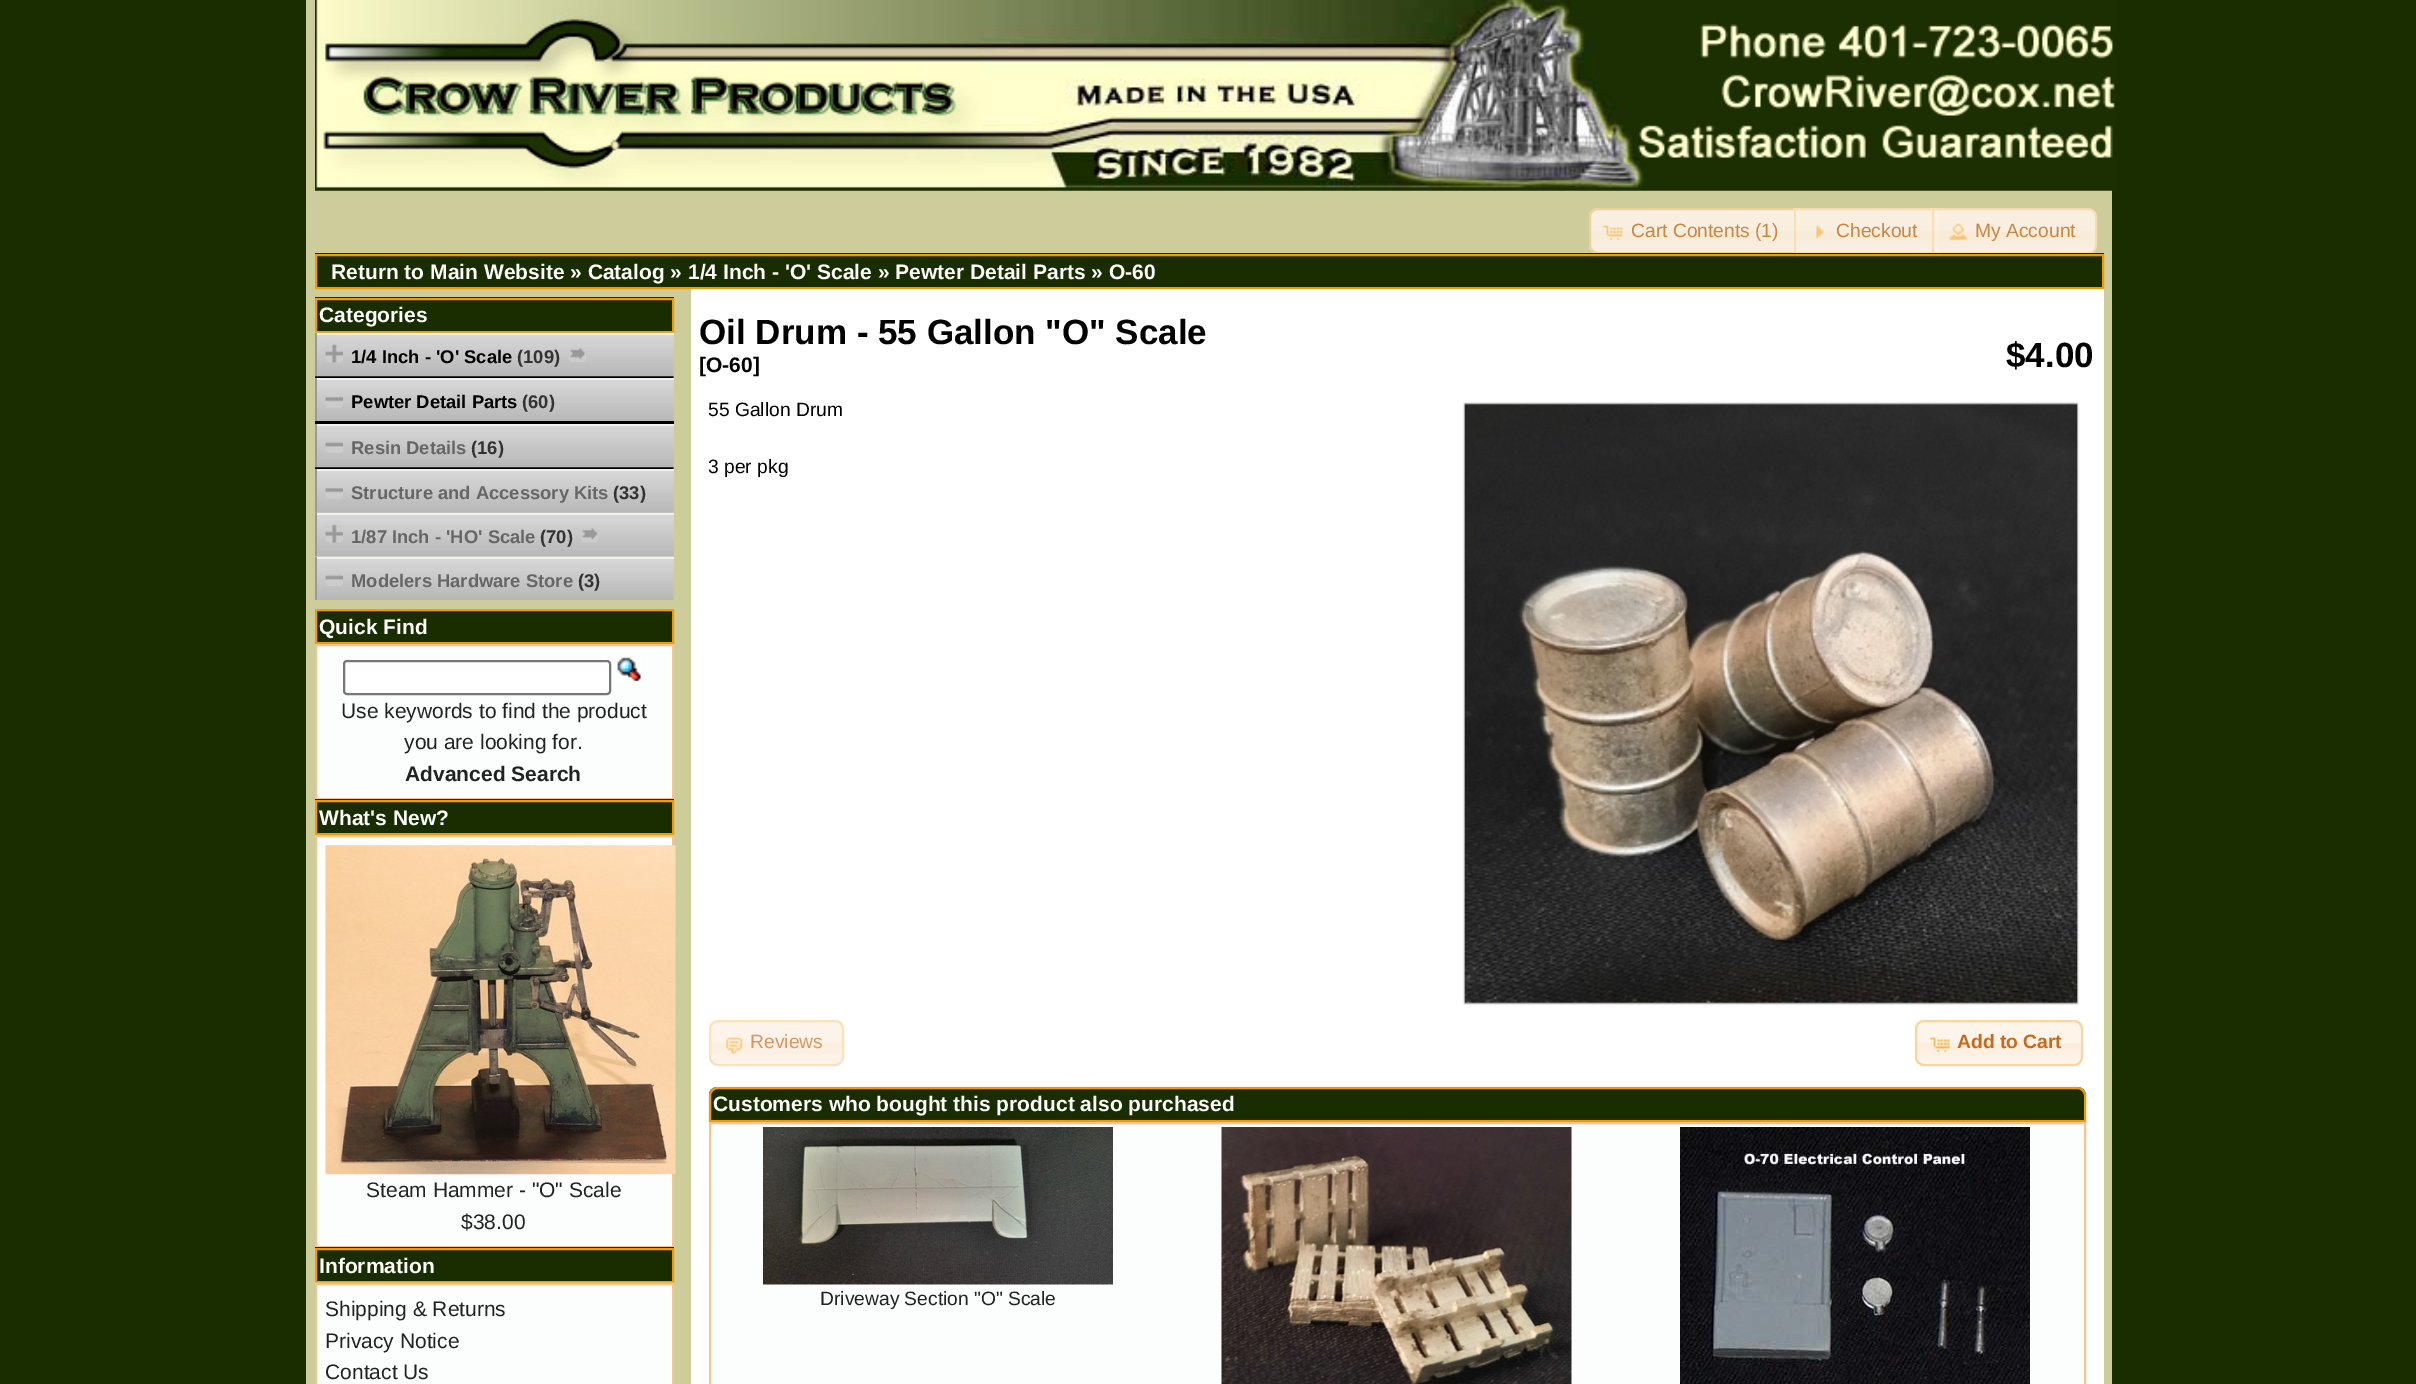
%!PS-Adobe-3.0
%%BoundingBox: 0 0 2416 1384
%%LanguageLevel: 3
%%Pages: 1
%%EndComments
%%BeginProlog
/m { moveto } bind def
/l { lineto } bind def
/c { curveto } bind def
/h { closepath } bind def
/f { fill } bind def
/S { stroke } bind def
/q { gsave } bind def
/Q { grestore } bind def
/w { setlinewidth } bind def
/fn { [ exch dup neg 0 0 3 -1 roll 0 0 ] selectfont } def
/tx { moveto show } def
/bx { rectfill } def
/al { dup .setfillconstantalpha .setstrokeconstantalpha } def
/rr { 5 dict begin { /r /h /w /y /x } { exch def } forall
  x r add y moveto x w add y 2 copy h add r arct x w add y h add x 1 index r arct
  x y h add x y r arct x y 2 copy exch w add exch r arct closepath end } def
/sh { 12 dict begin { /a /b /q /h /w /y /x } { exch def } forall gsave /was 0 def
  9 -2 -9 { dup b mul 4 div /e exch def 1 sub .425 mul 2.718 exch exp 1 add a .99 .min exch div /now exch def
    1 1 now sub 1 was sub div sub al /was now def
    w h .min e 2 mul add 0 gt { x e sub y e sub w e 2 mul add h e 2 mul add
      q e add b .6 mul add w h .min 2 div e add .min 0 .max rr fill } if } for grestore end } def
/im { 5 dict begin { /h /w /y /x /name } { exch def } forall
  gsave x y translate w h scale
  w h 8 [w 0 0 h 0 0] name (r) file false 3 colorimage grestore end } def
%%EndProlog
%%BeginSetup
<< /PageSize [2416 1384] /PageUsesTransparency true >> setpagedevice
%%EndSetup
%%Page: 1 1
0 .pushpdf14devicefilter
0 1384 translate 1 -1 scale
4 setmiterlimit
0.098 0.176 0 setrgbcolor
0 0 2416 1384 bx
0.804 0.804 0.608 setrgbcolor
306 0 1806 1384 bx
(image0.raw) 315 0 1800 191 im
(image1.raw) 1589 208 208 45 im
0.925 0.827 0.62 setrgbcolor
2 w
1598 209 m 1798 209 l 1798 253 l 1598 253 l 1593.5 253 1590 249.5 1590 245 c 1590 217 l 1590 212.5 1593.5 209 1598 209 c h S
(image2.raw) 1602 225 21 16 im
/LiberationSans-Regular 19.25 fn
0.792 0.529 0.263 setrgbcolor
(Cart Contents \(1\)) 1631 237 tx
0.7 al
0.988 0.933 0.875 setrgbcolor
1794 208 145 45 bx
1 al
(image3.raw) 1793 208 146 45 im
0.7 al
0.976 0.839 0.624 setrgbcolor
1795 209 143 44 rectstroke
1 al
(image4.raw) 1816 225 8 14 im
0.792 0.529 0.263 setrgbcolor
(Checkout) 1836 237 tx
0.7 al
0.988 0.933 0.875 setrgbcolor
1932 208 m 2088 208 l 2093 208 2097 212 2097 217 c 2097 245 l 2097 250 2093 254 2088 254 c 1932 254 l h f
1 al
(image5.raw) 1932 208 165 45 im
0.7 al
0.976 0.839 0.624 setrgbcolor
1933 209 m 2088 209 l 2092.5 209 2096 212.5 2096 217 c 2096 245 l 2096 249.5 2092.5 253 2088 253 c 1933 253 l h S
1 al
(image6.raw) 1949 223 19 18 im
0.792 0.529 0.263 setrgbcolor
(My Account) 1975 237 tx
0.098 0.176 0 setrgbcolor
315 253 1789 34 bx
0.941 0.608 0.02 setrgbcolor
316 255 1787 33 rectstroke
/LiberationSans-Bold 21 fn
1 setgray
(Return to Main Website » Catalog » 1/4 Inch - 'O' Scale » Pewter Detail Parts » O-60) 331 279 tx
0.098 0.176 0 setrgbcolor
315 297 359 34 bx
0.941 0.608 0.02 setrgbcolor
316 299 357 33 rectstroke
1 setgray
(Categories) 319 322 tx
(image7.raw) 315 332 359 45 im
0.945 setgray
315 333 359 2 bx
0.6 setgray
315 333 2 43 bx
(image8.raw) 325 344 18 19 im
/LiberationSans-Bold 18.4 fn
0 setgray
(1/4 Inch - 'O' Scale) 351 363 tx
0.2 setgray
(\(109\)) 517 363 tx
(image9.raw) 569 348 17 14 im
(image10.raw) 315 376 359 2 im
(image11.raw) 317 380 357 41 im
0.945 setgray
315 378 359 2 bx
0.6 setgray
315 378 2 44 bx
(image12.raw) 325 397 18 11 im
0 setgray
(Pewter Detail Parts) 351 408 tx
0.2 setgray
(\(60\)) 522 408 tx
0 setgray
315 421 359 3 bx
(image13.raw) 315 426 359 42 im
0.945 setgray
315 424 359 2 bx
0.6 setgray
315 424 2 43 bx
(image14.raw) 325 442 18 11 im
0.4 setgray
(Resin Details) 351 454 tx
0.2 setgray
(\(16\)) 471 454 tx
(image10.raw) 315 467 359 2 im
(image15.raw) 317 471 357 42 im
0.945 setgray
315 469 359 2 bx
0.6 setgray
315 469 2 44 bx
(image12.raw) 325 488 18 11 im
0.4 setgray
(Structure and Accessory Kits) 351 499 tx
0.2 setgray
(\(33\)) 613 499 tx
(image16.raw) 315 512 359 45 im
0.945 setgray
315 513 359 2 bx
0.6 setgray
315 513 2 44 bx
(image17.raw) 325 524 18 19 im
0.4 setgray
(1/87 Inch - 'HO' Scale) 351 543 tx
0.2 setgray
(\(70\)) 540 543 tx
(image18.raw) 581 528 17 15 im
(image19.raw) 315 556 359 44 im
0.945 setgray
315 557 359 2 bx
0.6 setgray
315 557 2 43 bx
(image14.raw) 325 575 18 11 im
0.4 setgray
(Modelers Hardware Store) 351 587 tx
0.2 setgray
(\(3\)) 578 587 tx
0.098 0.176 0 setrgbcolor
316 610 m 673 610 l 673 643 l 316 643 l h q f Q
0.941 0.608 0.02 setrgbcolor
S
/LiberationSans-Bold 21 fn
1 setgray
(Quick Find) 319 634 tx
0.988 0.992 0.992 setrgbcolor
316 645 m 673 645 l 673 799 l 316 799 l h q f Q
0.957 0.765 0.58 setrgbcolor
S
1 setgray
344 661 266 33 3 rr q f Q
0.463 setgray
S
(image20.raw) 617 657 24 25 im
/LiberationSans-Regular 21 fn
0.133 setgray
(Use keywords to find the product) 341 718 tx
(you are looking for.) 404 749 tx
/LiberationSans-Bold 21 fn
(Advanced Search) 405 781 tx
0.098 0.176 0 setrgbcolor
315 799 359 34 bx
0.941 0.608 0.02 setrgbcolor
316 801 357 33 rectstroke
1 setgray
(What's New?) 319 825 tx
0.988 0.992 0.992 setrgbcolor
316 836 m 673 836 l 673 1247 l 316 1247 l h q f Q
0.957 0.765 0.58 setrgbcolor
S
(image21.raw) 325 845 351 330 im
/LiberationSans-Regular 21 fn
0.133 setgray
(Steam Hammer - "O" Scale) 366 1197 tx
($38.00) 461 1229 tx
0.098 0.176 0 setrgbcolor
315 1247 359 34 bx
0.941 0.608 0.02 setrgbcolor
316 1249 357 33 rectstroke
/LiberationSans-Bold 21 fn
1 setgray
(Information) 319 1273 tx
0.988 0.992 0.992 setrgbcolor
316 1284 m 673 1284 l 673 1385 l 316 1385 l h q f Q
0.957 0.765 0.58 setrgbcolor
S
(image22.raw) 315 1282 359 1 im
/LiberationSans-Regular 21 fn
0.133 setgray
(Shipping & Returns) 325 1316 tx
(Privacy Notice) 325 1348 tx
(Contact Us) 325 1379 tx
1 setgray
691 289 1413 1095 bx
/LiberationSans-Bold 35 fn
0 setgray
(Oil Drum - 55 Gallon "O" Scale) 699 344 tx
/LiberationSans-Bold 21 fn
([O-60]) 699 372 tx
/LiberationSans-Bold 35 fn
($4.00) 2006 367 tx
/LiberationSans-Regular 19.25 fn
(55 Gallon Drum) 708 416 tx
1465 404 612 599 0 1 1 sh
(image23.raw) 1464 404 614 599 im
(3 per pkg) 708 473 tx
0.992 0.953 0.914 setrgbcolor
709 1020 135 46 9 rr f
(image24.raw) 709 1025 134 39 im
0.984 0.886 0.737 setrgbcolor
710 1021 133 44 8 rr S
(image25.raw) 725 1037 18 17 im
0.851 0.588 0.38 setrgbcolor
(Reviews) 750 1048 tx
(image26.raw) 1914 1020 168 46 im
0.976 0.839 0.624 setrgbcolor
1916 1021 166 44 8 rr S
(image27.raw) 1929 1037 21 16 im
/LiberationSans-Bold 19.25 fn
0.788 0.412 0.114 setrgbcolor
(Add to Cart) 1957 1048 tx
(image28.raw) 708 1086 1378 36 im
0.941 0.608 0.02 setrgbcolor
718 1088 m 2077 1088 l 2081.5 1088 2085 1091.5 2085 1096 c 2085 1121 l 710 1121 l 710 1096 l 710 1091.5 713.5 1088 718 1088 c h S
/LiberationSans-Bold 21 fn
1 setgray
(Customers who bought this product also purchased) 713 1111 tx
0.988 0.992 0.992 setrgbcolor
710 1123 m 2085 1123 l 2085 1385 l 710 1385 l h q f Q
0.957 0.765 0.58 setrgbcolor
S
(image29.raw) 763 1127 350 158 im
/LiberationSans-Regular 19.25 fn
0.133 setgray
(Driveway Section "O" Scale) 820 1305 tx
(image30.raw) 1221 1127 351 257 im
(image31.raw) 1680 1127 350 257 im
.poppdf14devicefilter showpage
%%EOF
